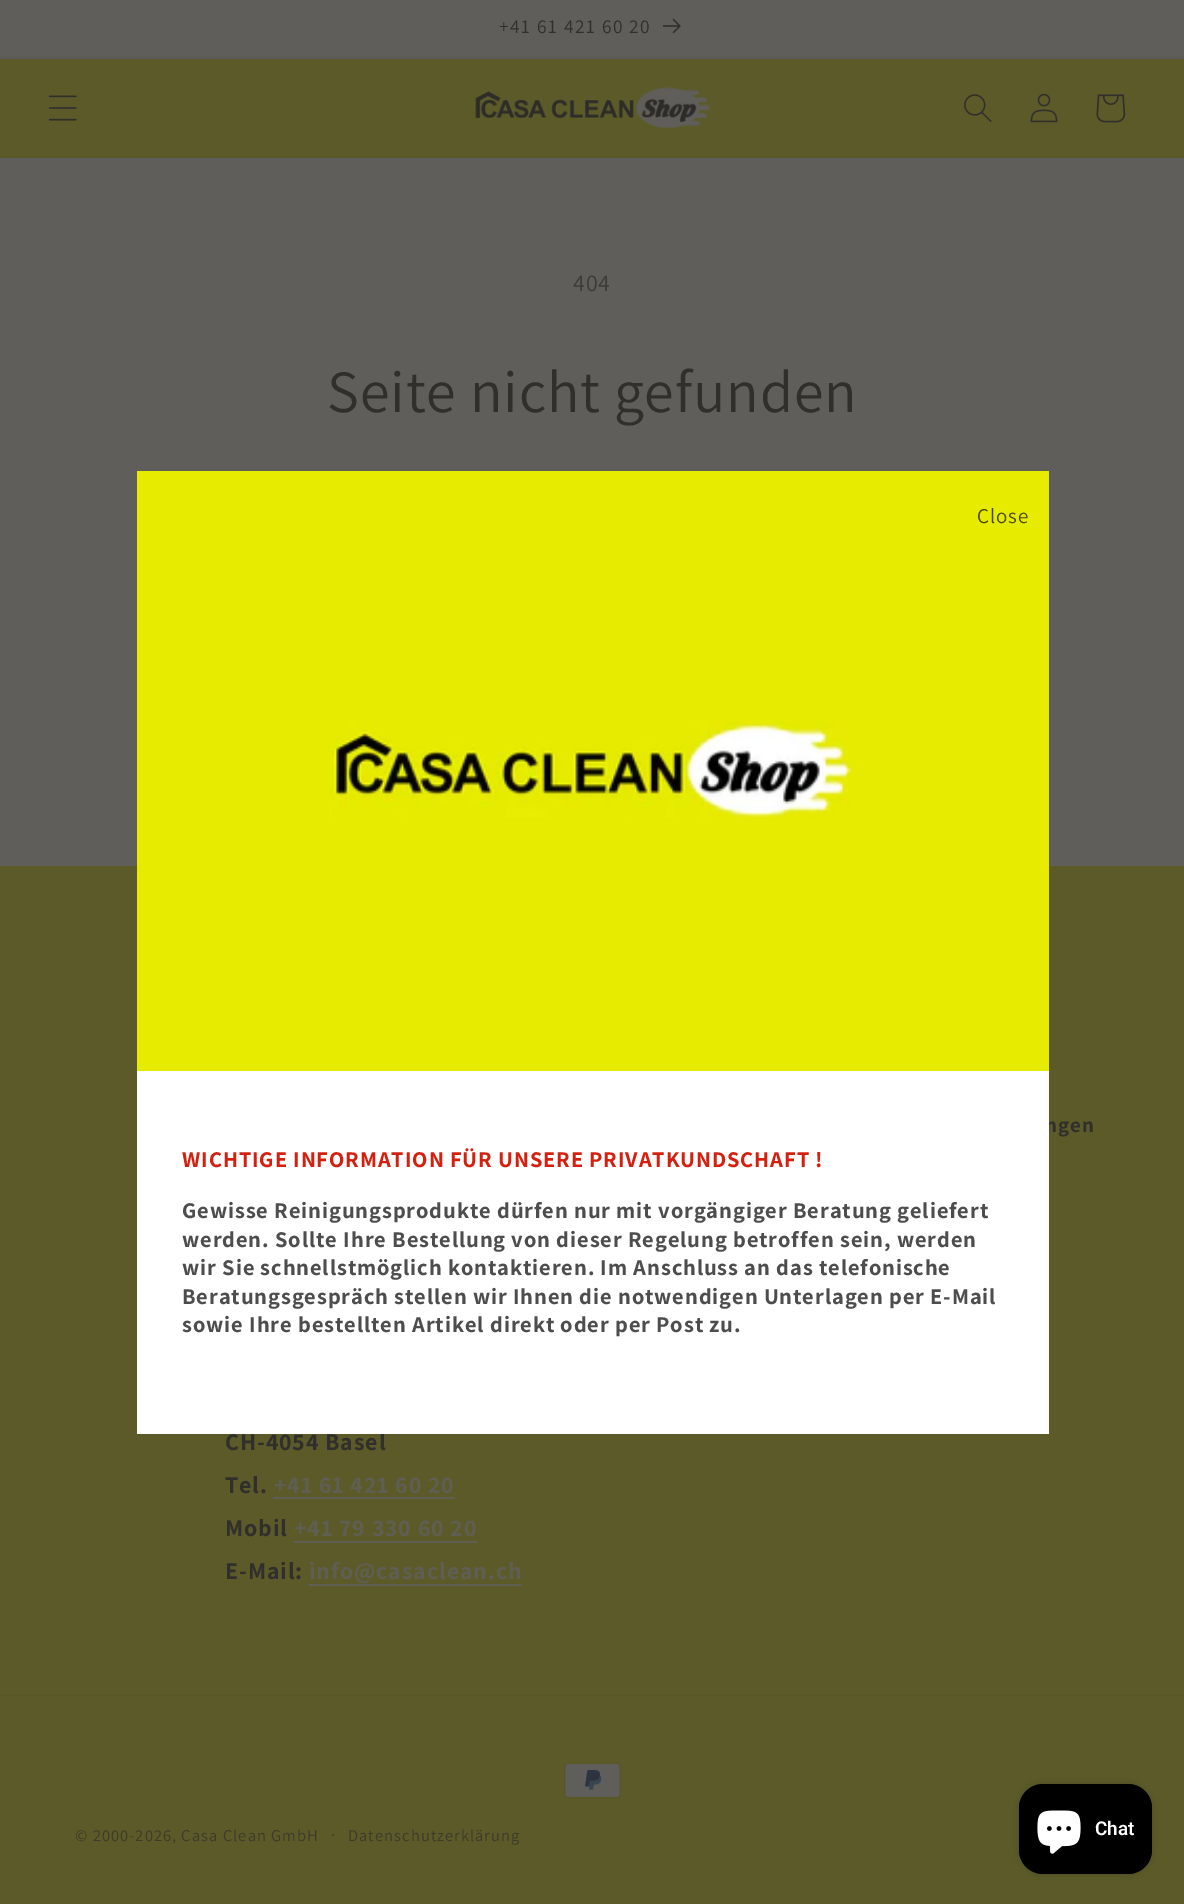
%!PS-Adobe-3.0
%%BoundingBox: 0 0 1184 1904
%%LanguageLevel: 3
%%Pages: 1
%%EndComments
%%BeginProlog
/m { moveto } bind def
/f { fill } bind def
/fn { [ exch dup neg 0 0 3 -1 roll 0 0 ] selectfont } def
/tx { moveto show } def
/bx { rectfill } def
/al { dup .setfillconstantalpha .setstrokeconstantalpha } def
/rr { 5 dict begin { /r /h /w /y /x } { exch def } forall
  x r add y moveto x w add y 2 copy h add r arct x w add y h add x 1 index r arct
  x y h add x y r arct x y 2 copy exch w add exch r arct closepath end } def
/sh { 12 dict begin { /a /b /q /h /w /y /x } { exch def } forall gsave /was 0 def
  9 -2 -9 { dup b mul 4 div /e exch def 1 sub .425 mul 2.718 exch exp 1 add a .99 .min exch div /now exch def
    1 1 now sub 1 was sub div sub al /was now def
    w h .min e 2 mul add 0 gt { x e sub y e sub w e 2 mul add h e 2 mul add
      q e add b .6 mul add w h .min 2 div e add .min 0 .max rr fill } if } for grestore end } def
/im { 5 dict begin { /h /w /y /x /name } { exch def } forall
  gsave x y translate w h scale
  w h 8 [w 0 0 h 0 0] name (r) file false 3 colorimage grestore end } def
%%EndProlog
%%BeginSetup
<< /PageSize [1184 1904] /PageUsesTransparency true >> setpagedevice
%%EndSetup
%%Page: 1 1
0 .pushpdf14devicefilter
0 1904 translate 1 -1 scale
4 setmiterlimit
0.376 0.369 0.357 setrgbcolor
0 0 1184 1904 bx
0.361 0.353 0.341 setrgbcolor
0 57 1184 2 bx
/Assistant-Regular 19.5 fn
0.188 0.184 0.173 setrgbcolor
499 33 m 1.5 0 (+41 61 421 60 20) ashow
(image0.raw) 663 18 18 16 im
0.357 0.353 0.157 setrgbcolor
0 59 1184 97 bx
0.341 0.341 0.157 setrgbcolor
0 156 1184 2 bx
(image1.raw) 48 95 29 26 im
(image2.raw) 472 86 239 43 im
(image3.raw) 964 94 28 28 im
(image4.raw) 1030 93 28 30 im
(image5.raw) 1096 94 30 29 im
/Assistant-Regular 24 fn
0.235 0.231 0.216 setrgbcolor
573 291 m 0.9 0 (404) ashow
/Assistant-Regular 60 fn
0.188 0.184 0.173 setrgbcolor
327 412 m 0.9 0 (Seite nicht gefunden) ashow
0.357 0.353 0.157 setrgbcolor
0 866 1184 1038 bx
/Assistant-Bold 21 fn
0.188 0.184 0.173 setrgbcolor
1045 1132 m 0.9 0 (ngen) ashow
/Assistant-Bold 24 fn
225 1450 m 0.9 0 (CH-4054 Basel) ashow
1 setgray
137 1071 912 363 bx
0.902 0.922 0 setrgbcolor
137 471 912 600 bx
(image6.raw) 330 721 523 97 im
/Assistant-Regular 21 fn
0.278 0.282 0.055 setrgbcolor
977 523 m 0.9 0 (Close) ashow
/Assistant-Bold 22.5 fn
0.835 0.122 0.059 setrgbcolor
182 1167 m 0.9 0 (WICHTIGE INFORMATION FÜR UNSERE PRIVATKUNDSCHAFT !) ashow
0.302 setgray
182 1218 m 0.9 0 (Gewisse Reinigungsprodukte dürfen nur mit vorgängiger Beratung geliefert) ashow
182 1247 m 0.9 0 (werden. Sollte Ihre Bestellung von dieser Regelung betroffen sein, werden) ashow
182 1275 m 0.9 0 (wir Sie schnellstmöglich kontaktieren. Im Anschluss an das telefonische) ashow
182 1304 m 0.9 0 (Beratungsgespräch stellen wir Ihnen die notwendigen Unterlagen per E-Mail) ashow
182 1332 m 0.9 0 (sowie Ihre bestellten Artikel direkt oder per Post zu.) ashow
/Assistant-Bold 24 fn
0.188 0.184 0.173 setrgbcolor
225 1493 m 0.9 0 (Tel.) ashow
0.373 0.369 0.325 setrgbcolor
274 1493 m 0.9 0 (+41 61 421 60 20) ashow
273 1497 182 2 bx
0.188 0.184 0.173 setrgbcolor
225 1536 m 0.9 0 (Mobil) ashow
0.373 0.369 0.325 setrgbcolor
294 1536 m 0.9 0 (+41 79 330 60 20) ashow
294 1541 183 2 bx
0.188 0.184 0.173 setrgbcolor
225 1579 m 0.9 0 (E-Mail:) ashow
0.373 0.369 0.325 setrgbcolor
309 1579 m 0.9 0 (info@casaclean.ch) ashow
309 1584 213 2 bx
0.341 0.341 0.157 setrgbcolor
0 1694 1184 2 bx
(image7.raw) 564 1763 57 36 im
/Assistant-Regular 16.5 fn
0.231 0.227 0.169 setrgbcolor
75 1841 m 1.05 0 (© 2000-2026, Casa Clean GmbH) ashow
/Assistant-Regular 18 fn
331 1841 m 1.05 0 (·) ashow
/Assistant-Regular 16.5 fn
348 1841 m 1.05 0 (Datenschutzerklärung) ashow
0 setgray
1019 1784 133 90 24 4 0.15 sh
1019 1784 133 90 24 rr f
(image8.raw) 1037 1810 44 44 im
/Roboto-SemiBold 19 fn
1 setgray
(Chat) 1095 1835 tx
.poppdf14devicefilter showpage
%%EOF
